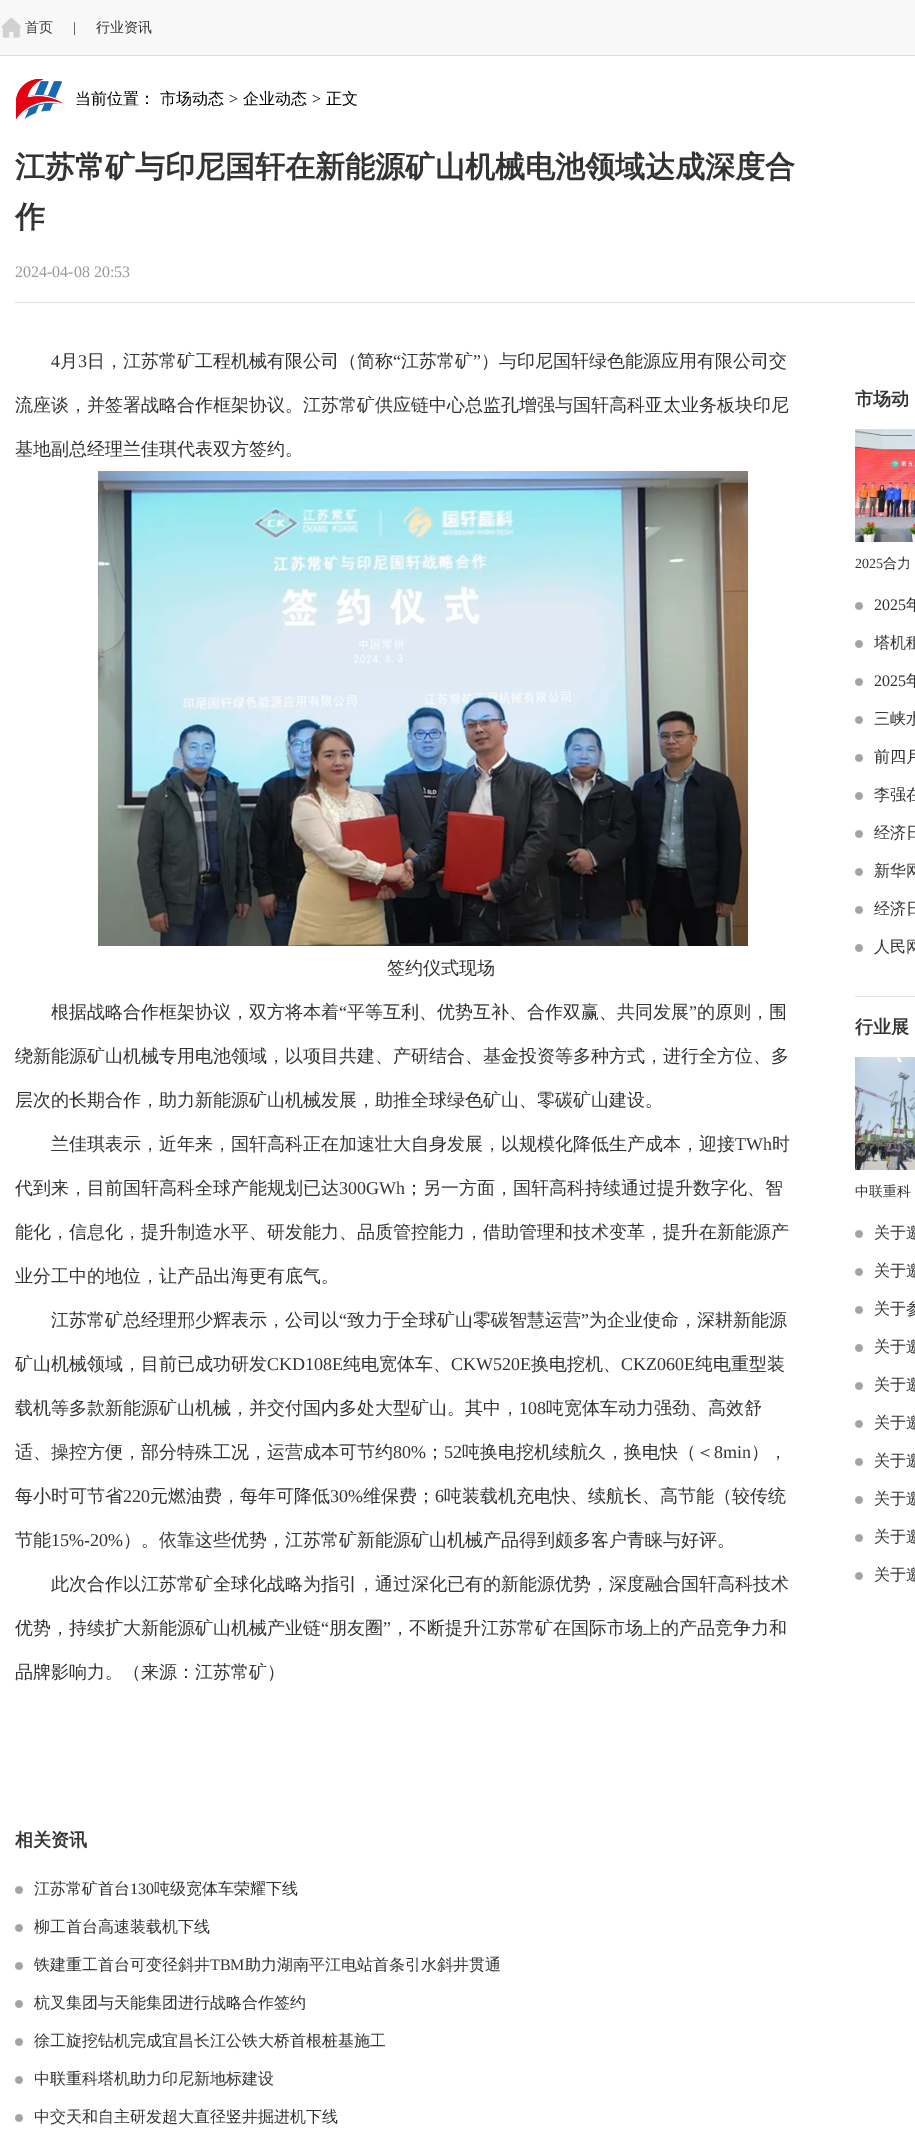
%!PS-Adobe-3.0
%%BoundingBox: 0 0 915 2139
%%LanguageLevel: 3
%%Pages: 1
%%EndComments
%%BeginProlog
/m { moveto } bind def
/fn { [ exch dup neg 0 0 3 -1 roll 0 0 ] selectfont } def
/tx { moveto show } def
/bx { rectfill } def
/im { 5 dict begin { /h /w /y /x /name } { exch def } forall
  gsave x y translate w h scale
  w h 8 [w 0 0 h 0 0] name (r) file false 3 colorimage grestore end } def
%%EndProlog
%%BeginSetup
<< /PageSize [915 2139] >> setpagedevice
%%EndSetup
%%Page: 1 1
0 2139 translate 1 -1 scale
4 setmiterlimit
1 setgray
0 0 915 2139 bx
0.973 setgray
0 0 915 55 bx
0.875 setgray
0 55 915 1 bx
(image0.raw) 1 17 20 21 im
/WenQuanYiZenHei-Medium 14 fn
0.2 setgray
(首页) 25 32 tx
/LiberationSerif-Regular 14 fn
(|) 73 32 tx
/WenQuanYiZenHei-Medium 14 fn
(行业资讯) 96 32 tx
(image1.raw) 16 79 47 40 im
/WenQuanYiZenHei-Medium 16 fn
0 setgray
(当前位置： 市场动态) 75 104 tx
/LiberationSerif-Regular 16 fn
(>) 229 104 tx
/WenQuanYiZenHei-Medium 16 fn
(企业动态) 243 104 tx
/LiberationSerif-Regular 16 fn
(>) 312 104 tx
/WenQuanYiZenHei-Medium 16 fn
(正文) 326 104 tx
0.875 setgray
15 302 900 1 bx
/WenQuanYiZenHei-Bold 30 fn
0.2 setgray
(江苏常矿与印尼国轩在新能源矿山机械电池领域达成深度合) 15 177 tx
(作) 15 227 tx
/LiberationSerif-Regular 16 fn
0.6 setgray
(2024-04-08 20:53) 15 277 tx
/LiberationSerif-Regular 18 fn
0.2 setgray
(4) 51 367 tx
/WenQuanYiZenHei-Medium 18 fn
(月) 60 367 tx
/LiberationSerif-Regular 18 fn
(3) 78 367 tx
/WenQuanYiZenHei-Medium 18 fn
(日，江苏常矿工程机械有限公司（简称) 87 367 tx
/LiberationSerif-Regular 18 fn
(“) 393 367 tx
/WenQuanYiZenHei-Medium 18 fn
(江苏常矿) 401 367 tx
/LiberationSerif-Regular 18 fn
(”) 473 367 tx
/WenQuanYiZenHei-Medium 18 fn
(）与印尼国轩绿色能源应用有限公司交) 481 367 tx
(流座谈，并签署战略合作框架协议。江苏常矿供应链中心总监孔增强与国轩高科亚太业务板块印尼) 15 411 tx
(基地副总经理兰佳琪代表双方签约。) 15 455 tx
(image2.raw) 98 471 650 475 im
(签约仪式现场) 387 974 tx
(根据战略合作框架协议，双方将本着) 51 1018 tx
/LiberationSerif-Regular 18 fn
(“) 339 1018 tx
/WenQuanYiZenHei-Medium 18 fn
(平等互利、优势互补、合作双赢、共同发展) 347 1018 tx
/LiberationSerif-Regular 18 fn
(”) 689 1018 tx
/WenQuanYiZenHei-Medium 18 fn
(的原则，围) 697 1018 tx
(绕新能源矿山机械专用电池领域，以项目共建、产研结合、基金投资等多种方式，进行全方位、多) 15 1062 tx
(层次的长期合作，助力新能源矿山机械发展，助推全球绿色矿山、零碳矿山建设。) 15 1106 tx
(兰佳琪表示，近年来，国轩高科正在加速壮大自身发展，以规模化降低生产成本，迎接) 51 1150 tx
/LiberationSerif-Regular 18 fn
(TWh) 735 1150 tx
/WenQuanYiZenHei-Medium 18 fn
(时) 772 1150 tx
(代到来，目前国轩高科全球产能规划已达) 15 1194 tx
/LiberationSerif-Regular 18 fn
(300GWh) 339 1194 tx
/WenQuanYiZenHei-Medium 18 fn
(；另一方面，国轩高科持续通过提升数字化、智) 405 1194 tx
(能化，信息化，提升制造水平、研发能力、品质管控能力，借助管理和技术变革，提升在新能源产) 15 1238 tx
(业分工中的地位，让产品出海更有底气。) 15 1282 tx
(江苏常矿总经理邢少辉表示，公司以) 51 1326 tx
/LiberationSerif-Regular 18 fn
(“) 339 1326 tx
/WenQuanYiZenHei-Medium 18 fn
(致力于全球矿山零碳智慧运营) 347 1326 tx
/LiberationSerif-Regular 18 fn
(”) 581 1326 tx
/WenQuanYiZenHei-Medium 18 fn
(为企业使命，深耕新能源) 589 1326 tx
(矿山机械领域，目前已成功研发) 15 1370 tx
/LiberationSerif-Regular 18 fn
(CKD108E) 267 1370 tx
/WenQuanYiZenHei-Medium 18 fn
(纯电宽体车、) 343 1370 tx
/LiberationSerif-Regular 18 fn
(CKW520E) 451 1370 tx
/WenQuanYiZenHei-Medium 18 fn
(换电挖机、) 531 1370 tx
/LiberationSerif-Regular 18 fn
(CKZ060E) 621 1370 tx
/WenQuanYiZenHei-Medium 18 fn
(纯电重型装) 695 1370 tx
(载机等多款新能源矿山机械，并交付国内多处大型矿山。其中，) 15 1414 tx
/LiberationSerif-Regular 18 fn
(108) 519 1414 tx
/WenQuanYiZenHei-Medium 18 fn
(吨宽体车动力强劲、高效舒) 546 1414 tx
(适、操控方便，部分特殊工况，运营成本可节约) 15 1458 tx
/LiberationSerif-Regular 18 fn
(80%) 393 1458 tx
/WenQuanYiZenHei-Medium 18 fn
(；) 426 1458 tx
/LiberationSerif-Regular 18 fn
(52) 444 1458 tx
/WenQuanYiZenHei-Medium 18 fn
(吨换电挖机续航久，换电快（＜) 462 1458 tx
/LiberationSerif-Regular 18 fn
(8min) 714 1458 tx
/WenQuanYiZenHei-Medium 18 fn
(），) 751 1458 tx
(每小时可节省) 15 1502 tx
/LiberationSerif-Regular 18 fn
(220) 123 1502 tx
/WenQuanYiZenHei-Medium 18 fn
(元燃油费，每年可降低) 150 1502 tx
/LiberationSerif-Regular 18 fn
(30%) 330 1502 tx
/WenQuanYiZenHei-Medium 18 fn
(维保费；) 363 1502 tx
/LiberationSerif-Regular 18 fn
(6) 435 1502 tx
/WenQuanYiZenHei-Medium 18 fn
(吨装载机充电快、续航长、高节能（较传统) 444 1502 tx
(节能) 15 1546 tx
/LiberationSerif-Regular 18 fn
(15%-20%) 51 1546 tx
/WenQuanYiZenHei-Medium 18 fn
(）。依靠这些优势，江苏常矿新能源矿山机械产品得到颇多客户青睐与好评。) 123 1546 tx
(此次合作以江苏常矿全球化战略为指引，通过深化已有的新能源优势，深度融合国轩高科技术) 51 1590 tx
(优势，持续扩大新能源矿山机械产业链) 15 1634 tx
/LiberationSerif-Regular 18 fn
(“) 321 1634 tx
/WenQuanYiZenHei-Medium 18 fn
(朋友圈) 329 1634 tx
/LiberationSerif-Regular 18 fn
(”) 383 1634 tx
/WenQuanYiZenHei-Medium 18 fn
(，不断提升江苏常矿在国际市场上的产品竞争力和) 391 1634 tx
(品牌影响力。（来源：江苏常矿）) 15 1678 tx
/WenQuanYiZenHei-Bold 18 fn
(相关资讯) 15 1846 tx
(image3.raw) 15 1886 8 8 im
/WenQuanYiZenHei-Medium 16 fn
(江苏常矿首台) 34 1894 tx
/LiberationSerif-Regular 16 fn
(130) 130 1894 tx
/WenQuanYiZenHei-Medium 16 fn
(吨级宽体车荣耀下线) 154 1894 tx
(image3.raw) 15 1924 8 8 im
(柳工首台高速装载机下线) 34 1932 tx
(image3.raw) 15 1962 8 8 im
(铁建重工首台可变径斜井) 34 1970 tx
/LiberationSerif-Regular 16 fn
(TBM) 210 1970 tx
/WenQuanYiZenHei-Medium 16 fn
(助力湖南平江电站首条引水斜井贯通) 245 1970 tx
(image3.raw) 15 2000 8 8 im
(杭叉集团与天能集团进行战略合作签约) 34 2008 tx
(image3.raw) 15 2038 8 8 im
(徐工旋挖钻机完成宜昌长江公铁大桥首根桩基施工) 34 2046 tx
(image3.raw) 15 2076 8 8 im
(中联重科塔机助力印尼新地标建设) 34 2084 tx
(image3.raw) 15 2114 8 8 im
(中交天和自主研发超大直径竖井掘进机下线) 34 2122 tx
/WenQuanYiZenHei-Bold 18 fn
(市场动) 855 405 tx
(image4.raw) 855 429 60 113 im
/LiberationSerif-Regular 14 fn
(2025) 855 568 tx
/WenQuanYiZenHei-Medium 14 fn
(合力) 883 568 tx
(image3.raw) 855 602 8 8 im
/LiberationSerif-Regular 16 fn
(2025) 874 610 tx
/WenQuanYiZenHei-Medium 16 fn
(年) 906 610 tx
(image3.raw) 855 640 8 8 im
(塔机租) 874 648 tx
(image3.raw) 855 678 8 8 im
/LiberationSerif-Regular 16 fn
(2025) 874 686 tx
/WenQuanYiZenHei-Medium 16 fn
(年) 906 686 tx
(image3.raw) 855 716 8 8 im
(三峡水) 874 724 tx
(image3.raw) 855 754 8 8 im
874 762 m -1 0 32 (前四月) widthshow
(image3.raw) 855 792 8 8 im
(李强在) 874 800 tx
(image3.raw) 855 830 8 8 im
(经济日) 874 838 tx
(image3.raw) 855 868 8 8 im
(新华网) 874 876 tx
(image3.raw) 855 906 8 8 im
(经济日) 874 914 tx
(image3.raw) 855 944 8 8 im
(人民网) 874 952 tx
0.894 setgray
855 996 60 1 bx
/WenQuanYiZenHei-Bold 18 fn
0.2 setgray
(行业展) 855 1033 tx
(image5.raw) 855 1057 60 113 im
/WenQuanYiZenHei-Medium 14 fn
(中联重科) 855 1196 tx
(image3.raw) 855 1230 8 8 im
/WenQuanYiZenHei-Medium 16 fn
(关于邀) 874 1238 tx
(image3.raw) 855 1268 8 8 im
(关于邀) 874 1276 tx
(image3.raw) 855 1306 8 8 im
(关于参) 874 1314 tx
(image3.raw) 855 1344 8 8 im
(关于邀) 874 1352 tx
(image3.raw) 855 1382 8 8 im
(关于邀) 874 1390 tx
(image3.raw) 855 1420 8 8 im
(关于邀) 874 1428 tx
(image3.raw) 855 1458 8 8 im
(关于邀) 874 1466 tx
(image3.raw) 855 1496 8 8 im
(关于邀) 874 1504 tx
(image3.raw) 855 1534 8 8 im
(关于邀) 874 1542 tx
(image3.raw) 855 1572 8 8 im
(关于邀) 874 1580 tx
showpage
%%EOF
